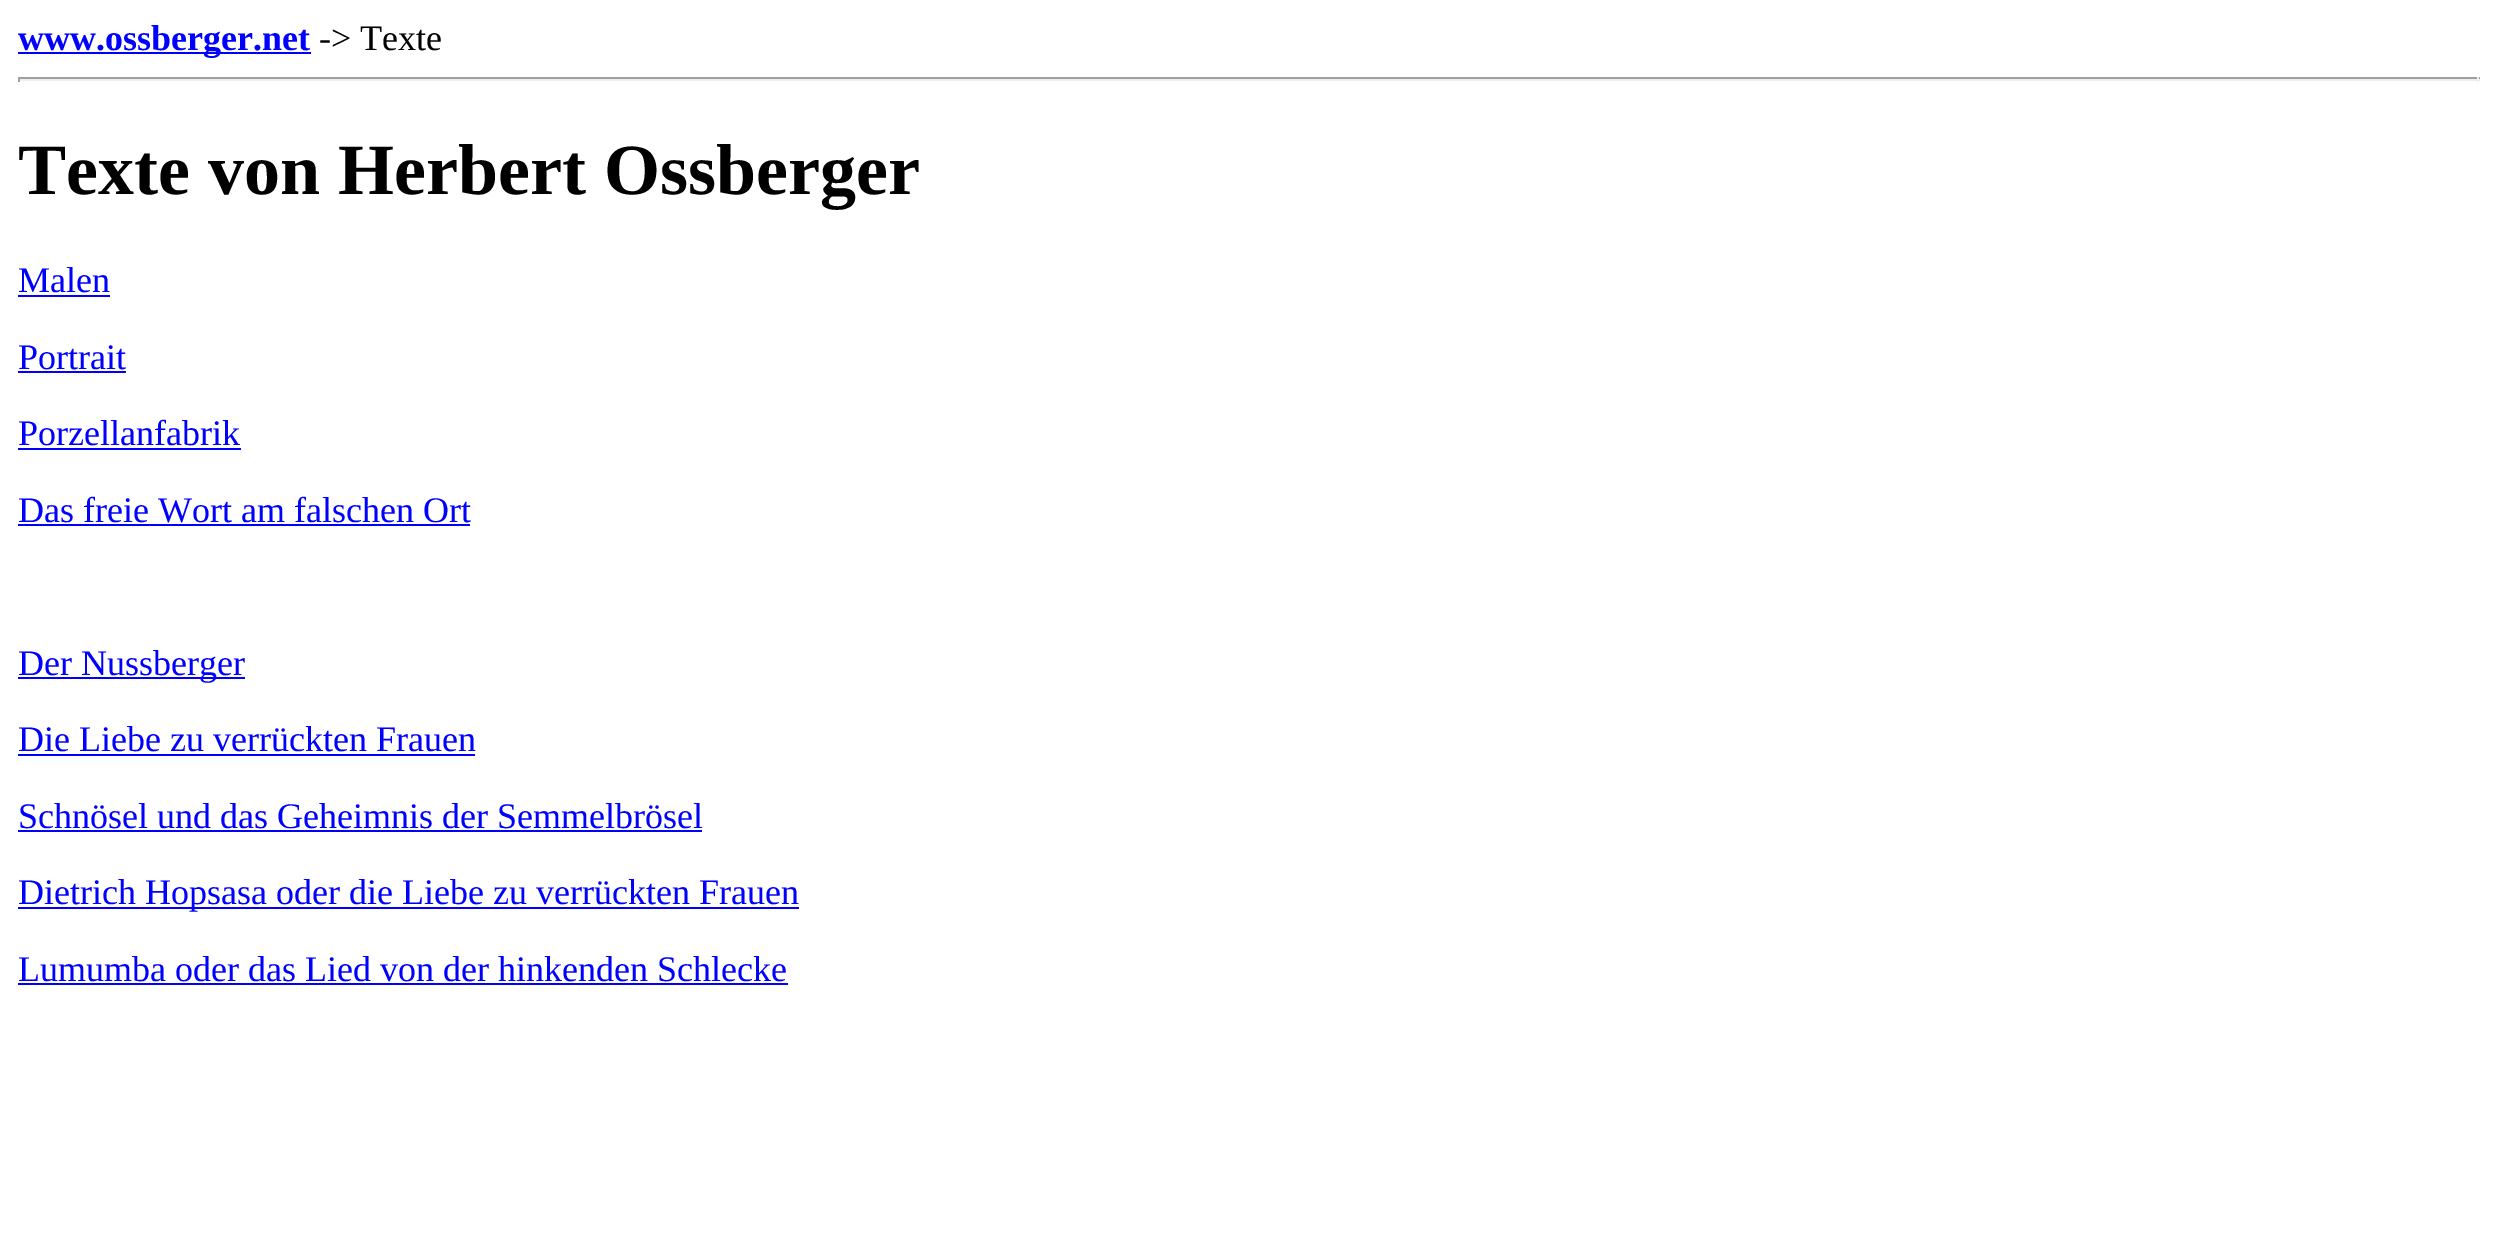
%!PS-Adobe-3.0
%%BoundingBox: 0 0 2497 1241
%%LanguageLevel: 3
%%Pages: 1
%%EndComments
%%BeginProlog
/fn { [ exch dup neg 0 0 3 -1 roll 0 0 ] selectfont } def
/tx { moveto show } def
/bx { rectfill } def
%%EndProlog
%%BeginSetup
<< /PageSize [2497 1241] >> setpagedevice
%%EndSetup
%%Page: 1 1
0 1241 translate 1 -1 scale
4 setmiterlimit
1 setgray
0 0 2497 1241 bx
0 0 1 setrgbcolor
18 52 293 2 bx
/LiberationSerif-Bold 36 fn
(www.ossberger.net) 18 50 tx
/LiberationSerif-Regular 36 fn
0 setgray
(-> Texte) 319 50 tx
0.624 setgray
18 77 2462 2 bx
0.933 setgray
2477 77 2 5 bx
18 79 2462 2 bx
0.624 setgray
18 77 2 5 bx
/LiberationSerif-Bold 72 fn
0 setgray
(Texte von Herbert Ossberger) 18 194 tx
/LiberationSerif-Regular 36 fn
0 0 1 setrgbcolor
(Malen) 18 292 tx
18 295 92 2 bx
(Portrait) 18 369 tx
18 371 108 2 bx
(Porzellanfabrik) 18 445 tx
18 448 223 2 bx
(Das freie Wort am falschen Ort) 18 522 tx
18 524 452 2 bx
18 677 227 2 bx
(Der Nussberger) 18 675 tx
(Die Liebe zu verrückten Frauen) 18 751 tx
18 754 457 2 bx
(Schnösel und das Geheimnis der Semmelbrösel) 18 828 tx
18 830 684 2 bx
18 907 781 2 bx
(Dietrich Hopsasa oder die Liebe zu verrückten Frauen) 18 904 tx
(Lumumba oder das Lied von der hinkenden Schlecke) 18 981 tx
18 983 770 2 bx
showpage
%%EOF
